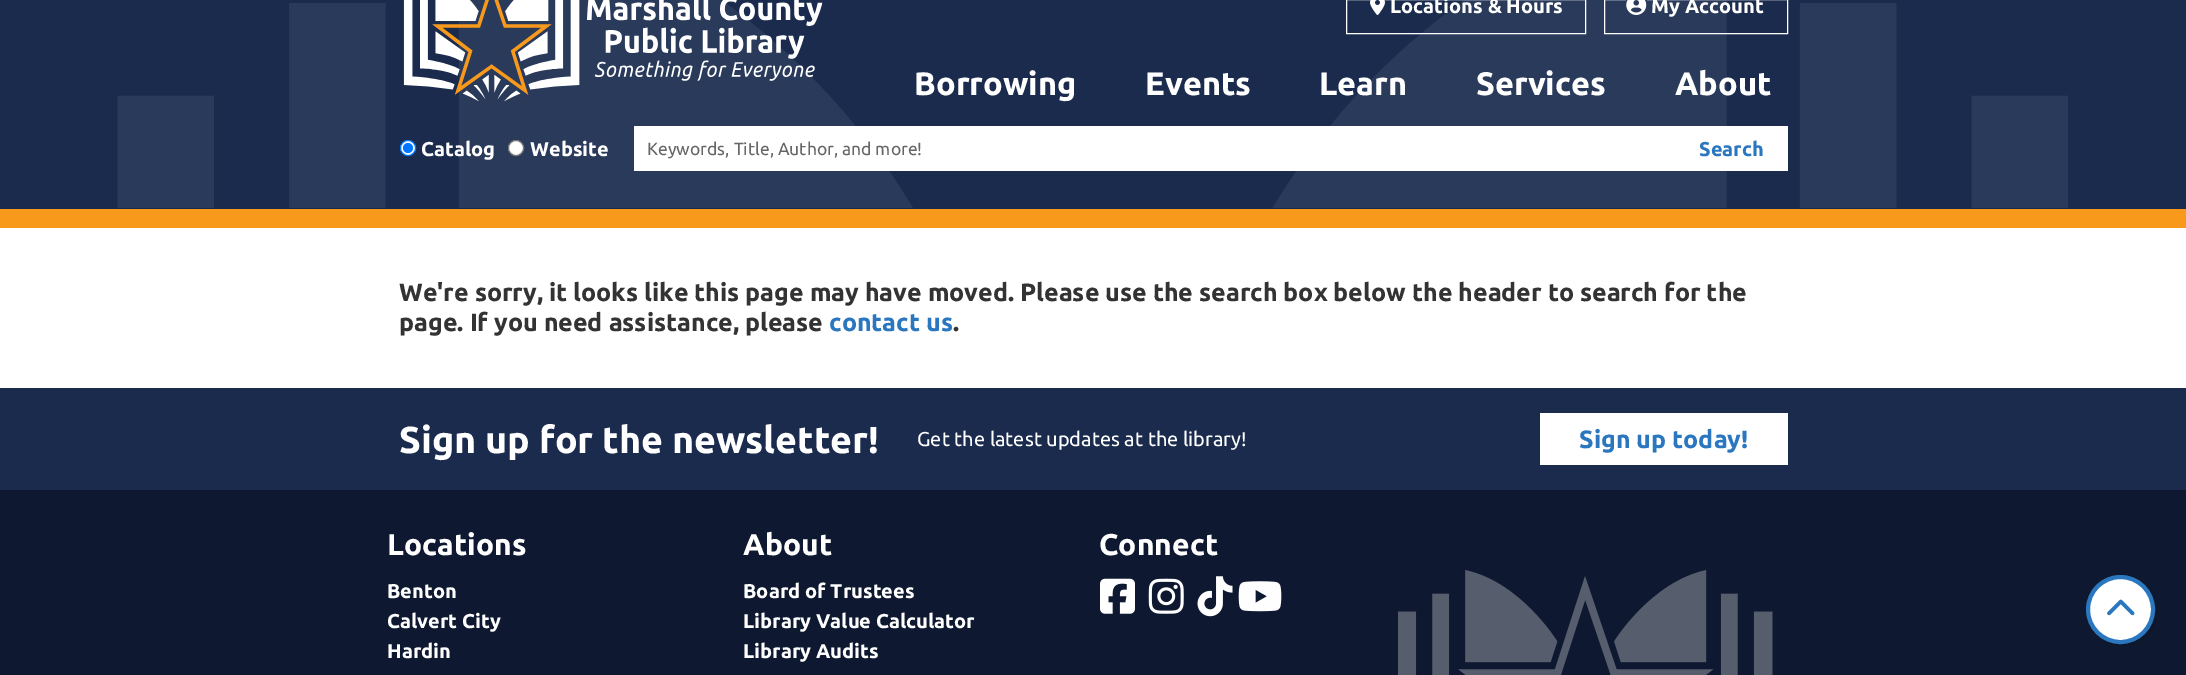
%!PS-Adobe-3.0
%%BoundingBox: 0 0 2186 675
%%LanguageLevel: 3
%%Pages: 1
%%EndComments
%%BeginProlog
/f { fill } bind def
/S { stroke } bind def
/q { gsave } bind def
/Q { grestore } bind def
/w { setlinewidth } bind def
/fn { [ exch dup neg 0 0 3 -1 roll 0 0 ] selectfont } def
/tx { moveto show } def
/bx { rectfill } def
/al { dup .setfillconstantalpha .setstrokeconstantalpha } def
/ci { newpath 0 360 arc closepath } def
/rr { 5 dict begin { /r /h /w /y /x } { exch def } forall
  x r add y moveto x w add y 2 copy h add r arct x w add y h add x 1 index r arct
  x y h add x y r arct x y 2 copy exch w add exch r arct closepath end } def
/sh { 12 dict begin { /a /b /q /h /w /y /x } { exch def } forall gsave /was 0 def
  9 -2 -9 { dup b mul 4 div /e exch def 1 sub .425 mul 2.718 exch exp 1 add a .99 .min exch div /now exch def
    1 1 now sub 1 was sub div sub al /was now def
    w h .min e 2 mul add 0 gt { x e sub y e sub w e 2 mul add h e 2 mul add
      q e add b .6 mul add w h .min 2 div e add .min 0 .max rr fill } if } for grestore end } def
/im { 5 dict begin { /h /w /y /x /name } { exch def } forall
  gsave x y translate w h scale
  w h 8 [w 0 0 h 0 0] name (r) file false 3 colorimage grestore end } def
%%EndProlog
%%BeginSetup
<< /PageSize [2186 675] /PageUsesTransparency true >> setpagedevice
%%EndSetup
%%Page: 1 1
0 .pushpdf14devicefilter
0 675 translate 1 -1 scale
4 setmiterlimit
1 setgray
0 0 2186 675 bx
0.102 0.169 0.302 setrgbcolor
0 0 2186 209 bx
(image0.raw) 117 0 1951 208 im
0.973 0.6 0.11 setrgbcolor
0 209 2186 19 bx
(image1.raw) 403 0 420 102 im
1 setgray
1346.5 -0.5 239 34 rectstroke
(image2.raw) 1370 0 15 15 im
/Ubuntu-Bold 20 fn
(Locations & Hours) 1390 13 tx
1604.5 -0.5 183 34 rectstroke
(image3.raw) 1626 0 21 15 im
(My Account) 1651 13 tx
/Ubuntu-Bold 32.5 fn
(Borrowing) 914 95 tx
(Events) 1145 95 tx
(Learn) 1319 95 tx
(Services) 1476 95 tx
(About) 1675 95 tx
408 148 7.5 ci q f Q
0 0.459 1 setrgbcolor
S
408 148 5 ci f
/Ubuntu-Bold 20 fn
1 setgray
(Catalog) 421 156 tx
516 148 7.5 ci q f Q
0.463 setgray
S
1 setgray
(Website) 530 156 tx
634 126 1154 45 bx
/Ubuntu-Regular 17.5 fn
0.4 setgray
(Keywords, Title, Author, and more!) 647 155 tx
/Ubuntu-Bold 20 fn
0.165 0.467 0.749 setrgbcolor
(Search) 1699 156 tx
/Ubuntu-Bold 25 fn
0.2 setgray
(We're sorry, it looks like this page may have moved. Please use the search box below the header to search for the) 399 301 tx
(page. If you need assistance, please) 399 331 tx
0.165 0.467 0.749 setrgbcolor
(contact us) 829 331 tx
0.2 setgray
(.) 953 331 tx
0.102 0.169 0.302 setrgbcolor
0 388 2186 102 bx
/Ubuntu-Bold 37.5 fn
1 setgray
(Sign up for the newsletter!) 399 453 tx
/Ubuntu-Regular 20 fn
(Get the latest updates at the library!) 917 446 tx
1540 413 248 52 bx
/Ubuntu-Bold 25 fn
0.165 0.467 0.749 setrgbcolor
(Sign up today!) 1579 448 tx
0.055 0.098 0.192 setrgbcolor
0 490 2186 185 bx
(image4.raw) 1398 570 375 105 im
/Ubuntu-Bold 30 fn
1 setgray
(Locations) 387 555 tx
/Ubuntu-Bold 20 fn
(Benton) 387 598 tx
(Calvert City) 387 628 tx
(Hardin) 387 658 tx
/Ubuntu-Bold 30 fn
(About) 743 555 tx
/Ubuntu-Bold 20 fn
(Board of Trustees) 743 598 tx
(Library Value Calculator) 743 628 tx
(Library Audits) 743 658 tx
/Ubuntu-Bold 30 fn
(Connect) 1099 555 tx
(image5.raw) 1100 578 35 36 im
(image6.raw) 1148 578 36 36 im
(image7.raw) 1197 576 36 41 im
(image8.raw) 1238 581 44 31 im
0 setgray
2088 576 68 69 34 2 0.25 sh
1 setgray
2120.5 609.5 32.5 ci q f Q
0.165 0.467 0.749 setrgbcolor
4 w
S
(image9.raw) 2107 599 28 17 im
.poppdf14devicefilter showpage
%%EOF
